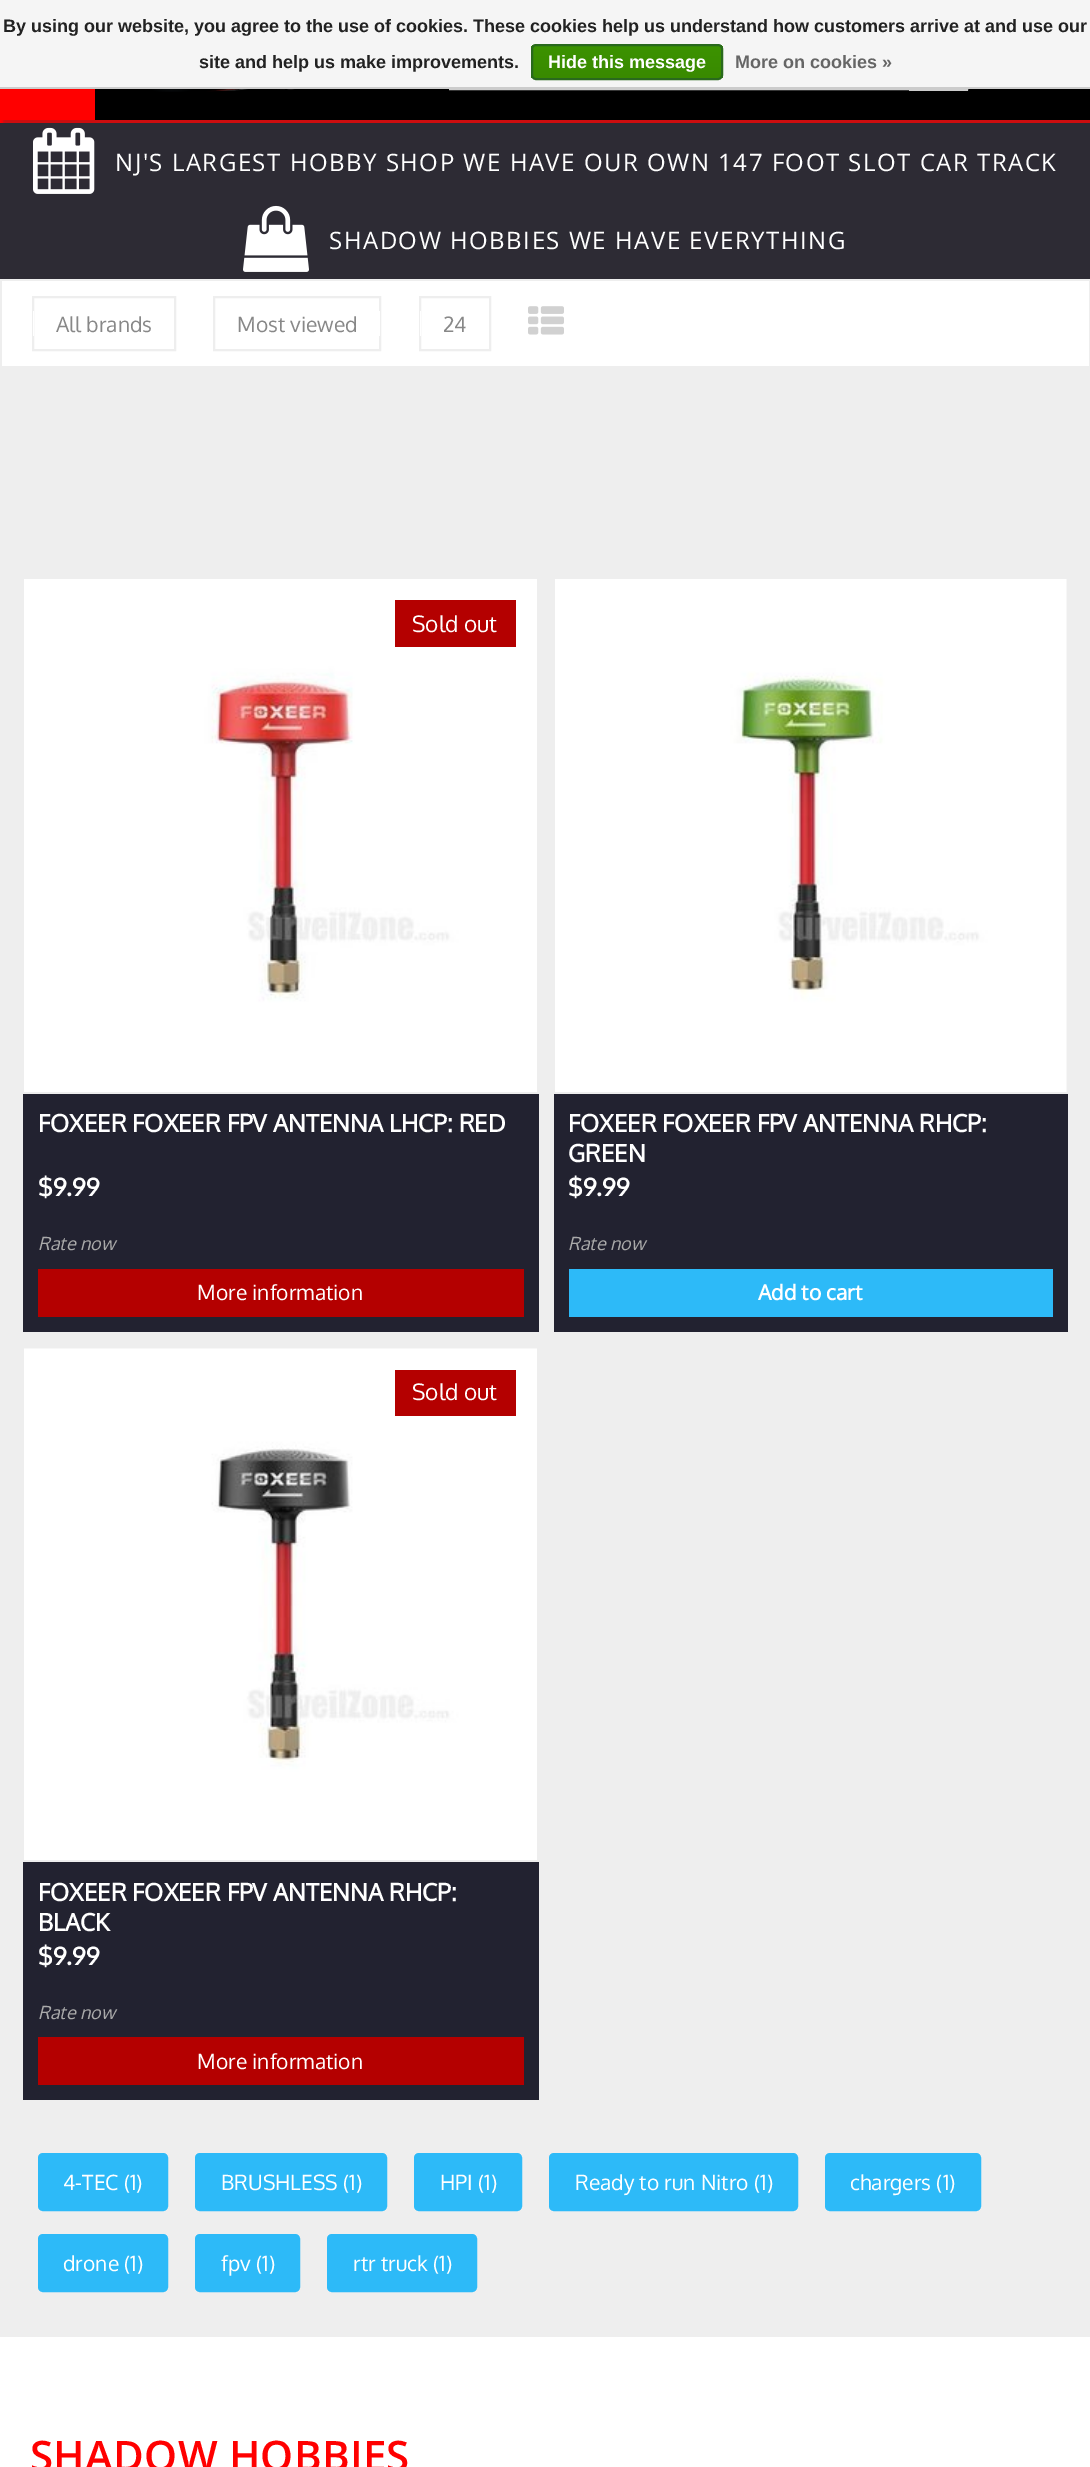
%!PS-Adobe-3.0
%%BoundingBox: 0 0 1090 2467
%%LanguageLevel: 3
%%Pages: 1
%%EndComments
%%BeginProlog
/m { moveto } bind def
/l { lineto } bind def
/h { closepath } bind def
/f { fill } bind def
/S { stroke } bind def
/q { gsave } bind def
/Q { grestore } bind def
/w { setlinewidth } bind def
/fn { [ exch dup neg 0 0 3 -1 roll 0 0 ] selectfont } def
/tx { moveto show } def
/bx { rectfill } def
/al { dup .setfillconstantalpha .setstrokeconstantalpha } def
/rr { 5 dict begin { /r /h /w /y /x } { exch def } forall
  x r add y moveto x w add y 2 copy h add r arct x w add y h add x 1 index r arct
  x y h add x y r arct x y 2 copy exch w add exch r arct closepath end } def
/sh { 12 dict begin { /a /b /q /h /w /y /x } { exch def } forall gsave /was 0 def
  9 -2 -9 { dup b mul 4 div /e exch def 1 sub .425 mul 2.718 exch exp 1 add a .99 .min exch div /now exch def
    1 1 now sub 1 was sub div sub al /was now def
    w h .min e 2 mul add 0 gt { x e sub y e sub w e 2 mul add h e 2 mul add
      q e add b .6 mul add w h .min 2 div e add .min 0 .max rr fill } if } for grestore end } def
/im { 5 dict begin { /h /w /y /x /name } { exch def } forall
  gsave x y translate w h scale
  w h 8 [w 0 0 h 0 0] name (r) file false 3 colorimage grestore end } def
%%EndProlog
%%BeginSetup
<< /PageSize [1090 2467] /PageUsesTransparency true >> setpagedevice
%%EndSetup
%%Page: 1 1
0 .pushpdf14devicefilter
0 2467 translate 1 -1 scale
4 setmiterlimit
0.933 setgray
0 0 1090 2467 bx
0.176 0.169 0.204 setrgbcolor
0 123 1090 156 bx
1 0 0.016 setrgbcolor
0 120 1090 3 bx
(image1.raw) 33 127 62 67 im
0.196 setgray
3 2 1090 123 0 1 0.25 sh
0 setgray
95 89 995 31 bx
0.8 setgray
2 w
450 31 517 58 rectstroke
0.961 setgray
0 0 1090 87 bx
0.8 setgray
0 87 1090 2 bx
/LiberationSans-Bold 18 fn
0.133 setgray
(By using our website, you agree to the use of cookies. These cookies help us understand how customers arrive at and use our) 3 32 tx
(site and help us make improvements.) 199 68 tx
q
531 44 192 36 5 rr clip newpath
q 531 45 m 723 45 l 723 78 l 531 78 l h clip newpath
<< /ShadingType 2 /ColorSpace /DeviceRGB /Coords [627 45 627 78] /Extend [true true] /Function << /FunctionType 2 /Domain [0 1] /C0 [0.235 0.576 0] /C1 [0.224 0.541 0] /N 1 >> >> shfill Q
Q
0.161 0.412 0.114 setrgbcolor
532 45 190 34 4 rr S
1 setgray
(Hide this message) 548 68 tx
0.4 setgray
(More on cookies ») 735 68 tx
0.8 setgray
909 90 59 1 bx
1 0 0 setrgbcolor
0 89 95 31 bx
(image0.raw) 144 89 151 3 im
/OpenSans-Regular 24 fn
1 setgray
115 171 m 1.5 0 (NJ'S LARGEST HOBBY SHOP WE HAVE OUR OWN 147 FOOT SLOT CAR TRACK) ashow
(image2.raw) 243 205 66 67 im
329 249 m 1.5 0 (SHADOW HOBBIES WE HAVE EVERYTHING) ashow
2 281 1087 85 bx
0.933 setgray
33 297 142 53 rectstroke
/Oxygen-Regular 21 fn
0.533 setgray
(All brands) 56 332 tx
1 setgray
33 311 1 25 bx
0.933 setgray
214 297 166 53 rectstroke
0.533 setgray
(Most viewed) 237 332 tx
1 setgray
379 311 1 25 bx
0.933 setgray
420 297 70 53 rectstroke
0.533 setgray
(24) 443 332 tx
1 setgray
420 311 1 25 bx
(image3.raw) 528 306 36 29 im
(image4.raw) 24 579 513 513 im
0.706 0 0 setrgbcolor
395 600 121 47 bx
/Oxygen-Regular 22.5 fn
1 setgray
(Sold out) 412 632 tx
0.133 0.133 0.188 setrgbcolor
23 1094 516 238 bx
/Oxygen-Bold 24 fn
1 setgray
(FOXEER FOXEER FPV ANTENNA LHCP: RED) 38 1132 tx
($9.99) 38 1196 tx
/Oxygen-Italic 18 fn
0.667 setgray
(Rate now) 38 1250 tx
0.706 0 0 setrgbcolor
38 1269 486 48 bx
/Oxygen-Regular 21 fn
1 setgray
(More information) 197 1300 tx
(image5.raw) 555 579 512 513 im
0.133 0.133 0.188 setrgbcolor
554 1094 514 238 bx
/Oxygen-Bold 24 fn
1 setgray
(FOXEER FOXEER FPV ANTENNA RHCP:) 568 1132 tx
(GREEN) 568 1162 tx
($9.99) 568 1196 tx
/Oxygen-Italic 18 fn
0.667 setgray
(Rate now) 568 1250 tx
0.176 0.729 0.973 setrgbcolor
569 1269 484 48 bx
/Oxygen-Bold 21 fn
1 setgray
(Add to cart) 758 1300 tx
(image6.raw) 24 1348 513 512 im
0.706 0 0 setrgbcolor
395 1370 121 46 bx
/Oxygen-Regular 22.5 fn
1 setgray
(Sold out) 412 1400 tx
0.133 0.133 0.188 setrgbcolor
23 1862 516 238 bx
/Oxygen-Bold 24 fn
1 setgray
(FOXEER FOXEER FPV ANTENNA RHCP:) 38 1901 tx
(BLACK) 38 1931 tx
($9.99) 38 1965 tx
/Oxygen-Italic 18 fn
0.667 setgray
(Rate now) 38 2019 tx
0.706 0 0 setrgbcolor
38 2037 486 48 bx
/Oxygen-Regular 21 fn
1 setgray
(More information) 197 2069 tx
0.176 0.729 0.973 setrgbcolor
39.5 2154.5 127 55 3.5 rr q f Q
3 w
S
1 setgray
(4-TEC \(1\)) 63 2190 tx
0.176 0.729 0.973 setrgbcolor
196.5 2154.5 189 55 3.5 rr q f Q
S
1 setgray
(BRUSHLESS \(1\)) 221 2190 tx
0.176 0.729 0.973 setrgbcolor
415.5 2154.5 105 55 3.5 rr q f Q
S
1 setgray
(HPI \(1\)) 440 2190 tx
0.176 0.729 0.973 setrgbcolor
550.5 2154.5 246 55 3.5 rr q f Q
S
1 setgray
(Ready to run Nitro \(1\)) 575 2190 tx
0.176 0.729 0.973 setrgbcolor
826.5 2154.5 153 55 3.5 rr q f Q
S
1 setgray
(chargers \(1\)) 850 2190 tx
0.176 0.729 0.973 setrgbcolor
39.5 2235.5 127 55 3.5 rr q f Q
S
1 setgray
(drone \(1\)) 63 2271 tx
0.176 0.729 0.973 setrgbcolor
196.5 2235.5 102 55 3.5 rr q f Q
S
1 setgray
(fpv \(1\)) 221 2271 tx
0.176 0.729 0.973 setrgbcolor
328.5 2235.5 147 55 3.5 rr q f Q
S
1 setgray
(rtr truck \(1\)) 353 2271 tx
0 2337 1090 130 bx
/OpenSans-SemiBold 42 fn
1 0 0 setrgbcolor
30 2471 m 0.25 0 (SHADOW HOBBIES) ashow
.poppdf14devicefilter showpage
%%EOF
